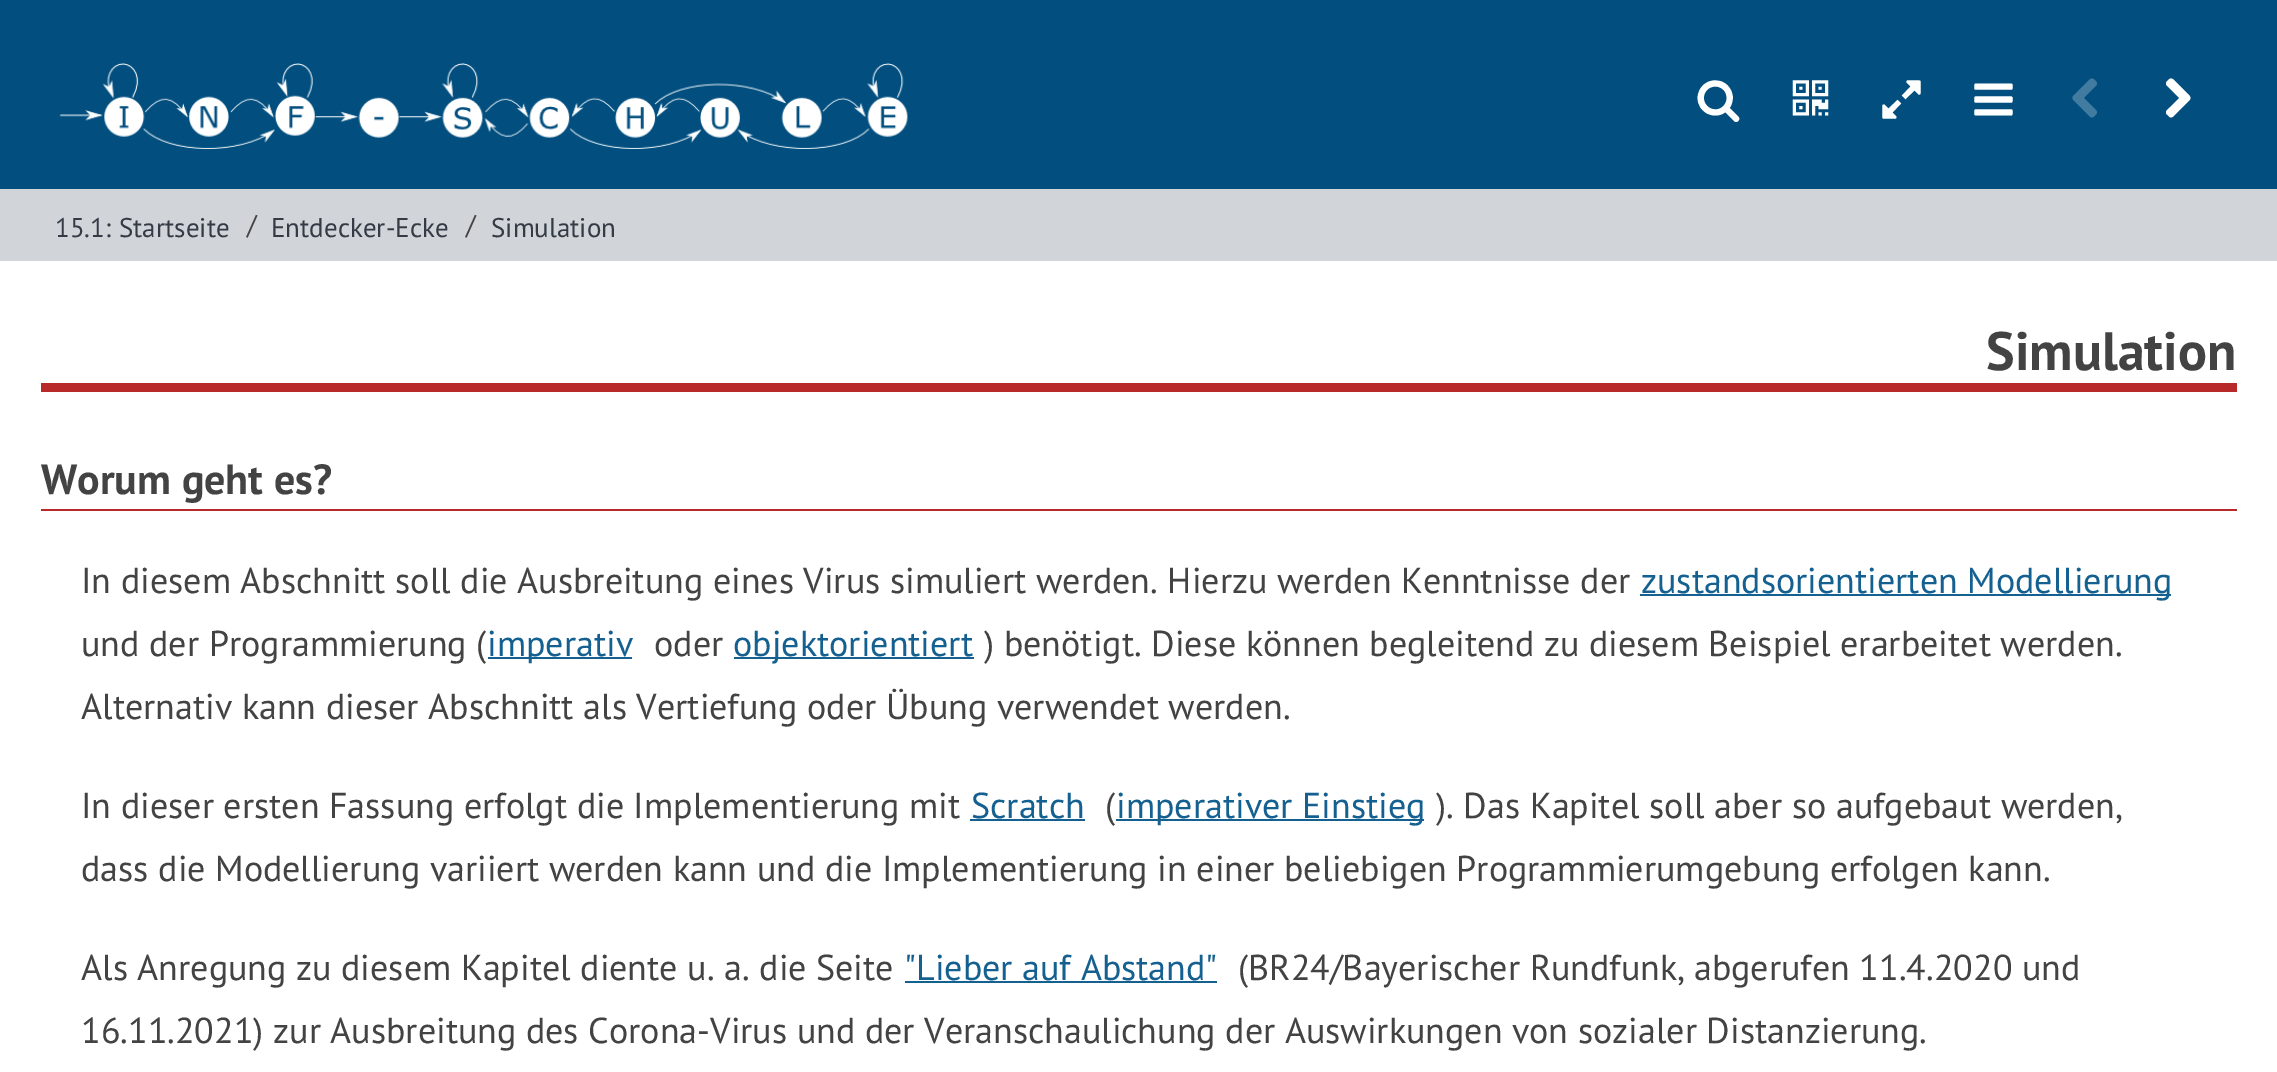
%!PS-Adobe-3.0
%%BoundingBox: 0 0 2277 1072
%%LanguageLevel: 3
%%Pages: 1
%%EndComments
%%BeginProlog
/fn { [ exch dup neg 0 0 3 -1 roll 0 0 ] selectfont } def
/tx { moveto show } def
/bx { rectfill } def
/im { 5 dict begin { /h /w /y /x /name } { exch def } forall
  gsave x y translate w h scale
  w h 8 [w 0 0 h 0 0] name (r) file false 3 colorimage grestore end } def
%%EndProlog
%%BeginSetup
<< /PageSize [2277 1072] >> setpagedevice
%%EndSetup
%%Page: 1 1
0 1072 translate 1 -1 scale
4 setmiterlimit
0.008 0.31 0.498 setrgbcolor
0 0 2277 1072 bx
(image0.raw) 59 63 849 86 im
/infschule-Regular 45 fn
1 setgray
(s) 1696 122 tx
(n) 1788 122 tx
(h) 1879 122 tx
(m) 1971 122 tx
0.255 0.482 0.624 setrgbcolor
(r) 2063 122 tx
1 setgray
(u) 2155 122 tx
0.82 0.831 0.851 setrgbcolor
0 189 2277 72 bx
/PTSans-Regular 27 fn
0.204 0.231 0.271 setrgbcolor
(15.1:) 55 237 tx
(Startseite) 119 237 tx
0.263 setgray
(/) 247 234 tx
0.204 0.231 0.271 setrgbcolor
(Entdecker-Ecke) 271 237 tx
0.263 setgray
(/) 466 234 tx
0.204 0.231 0.271 setrgbcolor
(Simulation) 491 237 tx
1 setgray
0 261 2277 811 bx
0.722 0.161 0.161 setrgbcolor
41 383 2196 9 bx
/PTSans-Bold 54 fn
0.263 setgray
(Simulation) 1986 370 tx
0.722 0.161 0.161 setrgbcolor
41 509 2196 2 bx
/PTSans-Bold 42 fn
0.263 setgray
(Worum geht es?) 41 494 tx
/PTSans-Regular 36 fn
(In diesem Abschnitt soll die Ausbreitung eines Virus simuliert werden. Hierzu werden Kenntnisse der) 81 593 tx
0.078 0.376 0.565 setrgbcolor
1640 594 531 2 bx
(zustandsorientierten Modellierung) 1641 593 tx
0.263 setgray
(und der Programmierung \() 81 656 tx
0.078 0.376 0.565 setrgbcolor
488 657 144 2 bx
(imperativ) 487 656 tx
0.263 setgray
(oder) 654 656 tx
0.078 0.376 0.565 setrgbcolor
734 657 240 2 bx
(objektorientiert) 733 656 tx
0.263 setgray
(\) benötigt. Diese können begleitend zu diesem Beispiel erarbeitet werden.) 984 656 tx
(Alternativ kann dieser Abschnitt als Vertiefung oder Übung verwendet werden.) 81 719 tx
(In dieser ersten Fassung erfolgt die Implementierung mit) 81 818 tx
0.078 0.376 0.565 setrgbcolor
(Scratch) 971 818 tx
970 819 115 2 bx
0.263 setgray
(\() 1105 818 tx
0.078 0.376 0.565 setrgbcolor
1116 819 308 2 bx
(imperativer Einstieg) 1116 818 tx
0.263 setgray
(\). Das Kapitel soll aber so aufgebaut werden,) 1436 818 tx
(dass die Modellierung variiert werden kann und die Implementierung in einer beliebigen Programmierumgebung erfolgen kann.) 81 881 tx
(Als Anregung zu diesem Kapitel diente u. a. die Seite) 81 980 tx
0.078 0.376 0.565 setrgbcolor
("Lieber auf Abstand") 904 980 tx
905 981 312 2 bx
0.263 setgray
(\(BR24/Bayerischer Rundfunk, abgerufen 11.4.2020 und) 1238 980 tx
(16.11.2021\) zur Ausbreitung des Corona-Virus und der Veranschaulichung der Auswirkungen von sozialer Distanzierung.) 81 1043 tx
showpage
%%EOF
